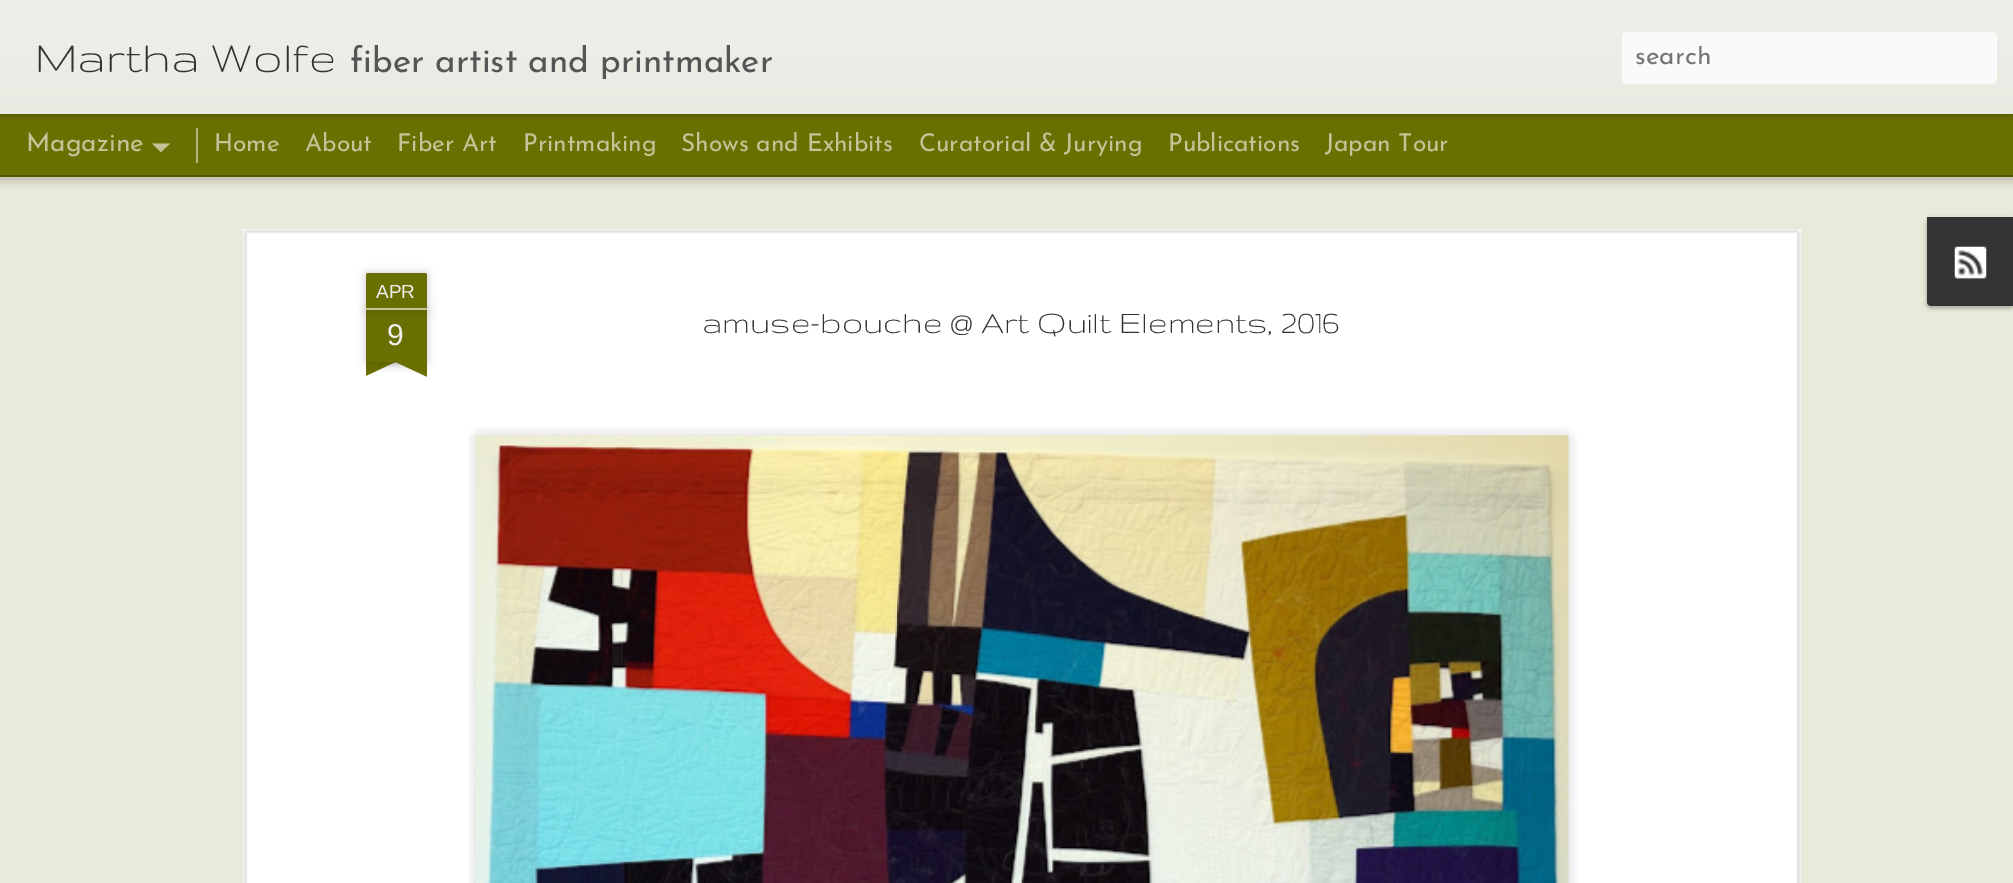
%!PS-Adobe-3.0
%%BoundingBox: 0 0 2013 883
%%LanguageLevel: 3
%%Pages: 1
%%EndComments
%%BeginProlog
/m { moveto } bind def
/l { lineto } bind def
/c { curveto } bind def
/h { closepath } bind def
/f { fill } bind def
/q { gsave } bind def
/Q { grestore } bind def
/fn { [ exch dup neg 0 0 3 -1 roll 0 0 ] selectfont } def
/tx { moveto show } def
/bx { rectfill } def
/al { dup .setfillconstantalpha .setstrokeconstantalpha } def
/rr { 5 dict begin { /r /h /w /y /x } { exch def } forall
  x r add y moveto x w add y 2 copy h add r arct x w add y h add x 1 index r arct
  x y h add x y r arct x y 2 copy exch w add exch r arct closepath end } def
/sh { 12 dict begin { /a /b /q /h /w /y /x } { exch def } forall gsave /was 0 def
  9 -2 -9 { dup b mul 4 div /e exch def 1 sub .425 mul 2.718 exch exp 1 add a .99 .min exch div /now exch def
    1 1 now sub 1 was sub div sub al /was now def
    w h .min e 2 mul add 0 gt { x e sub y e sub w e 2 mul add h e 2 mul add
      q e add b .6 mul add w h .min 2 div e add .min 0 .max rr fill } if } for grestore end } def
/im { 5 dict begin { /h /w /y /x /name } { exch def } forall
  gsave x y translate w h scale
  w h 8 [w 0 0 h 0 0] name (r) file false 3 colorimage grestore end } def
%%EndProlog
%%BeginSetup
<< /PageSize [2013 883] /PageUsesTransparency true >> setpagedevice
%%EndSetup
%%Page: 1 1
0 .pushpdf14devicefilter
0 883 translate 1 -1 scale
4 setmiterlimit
0.412 0.435 0 setrgbcolor
0 0 2013 883 bx
0.914 0.918 0.851 setrgbcolor
0 177 2013 706 bx
0 setgray
0 114 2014 61 0 7 0.5 sh
0.412 0.435 0 setrgbcolor
0 114 2013 61 bx
0.706 0.718 0.502 setrgbcolor
196 128 2 35 bx
0 setgray
0 0 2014 114 0 4.5 0.3 sh
q 0 0 m 2013 0 l 2013 114 l 0 114 l h clip newpath
<< /ShadingType 2 /ColorSpace /DeviceRGB /Coords [0 0 0 114] /Extend [true true] /Function << /FunctionType 2 /Domain [0 1] /C0 [0.937 0.941 0.918] /C1 [0.914 0.918 0.886] /N 1 >> >> shfill Q
/Gruppo-Regular 49 fn
0.2 setgray
(Martha Wolfe) 35 72 tx
/JosefinSans-Thin 35 fn
0.333 setgray
(fiber artist and printmaker) 350 72 tx
0.98 setgray
1622 32 375 52 5 rr f
q
1635 46 350 26 rectclip
/JosefinSans-Thin 26.25 fn
0.459 setgray
(search) 1635 64 tx
Q
/JosefinSans-Thin 26.25 fn
0.765 0.773 0.6 setrgbcolor
(Magazine) 26 151 tx
152 143.5 m 170 143.5 l 161 152 l h f
/JosefinSans-Thin 24.5 fn
(Home) 214 151 tx
(About) 305 151 tx
(Fiber Art) 397 151 tx
(Printmaking) 523 151 tx
(Shows and Exhibits) 681 151 tx
(Curatorial & Jurying) 919 151 tx
(Publications) 1168 151 tx
(Japan Tour) 1325 151 tx
1 setgray
243 229 1558 654 bx
(image0.raw) 243 229 1558 654 im
0 setgray
366 310 61 52 0 4.5 0.2 sh
0.412 0.435 0 setrgbcolor
366 310 61 52 bx
0 setgray
366 273 61 37 2 4.5 0.2 sh
0.412 0.435 0 setrgbcolor
368 273 m 425 273 l 426 273 427 274 427 275 c 427 310 l 366 310 l 366 275 l 366 274 367 273 368 273 c h f
0.765 0.773 0.6 setrgbcolor
366 308 61 2 bx
/LiberationSans-Regular 19 fn
0.933 setgray
(APR) 376 298 tx
/LiberationSans-Regular 30 fn
(9) 387 345 tx
q
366 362 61 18 rectclip
0 setgray
350 345 88 17 0 4.5 0.2 sh
Q
q
366 362 61 18 rectclip
0.412 0.435 0 setrgbcolor
350 364 m 429 327 l 436 343 l 357 380 l h f
Q
q
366 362 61 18 rectclip
0 setgray
355 345 88 17 0 4.5 0.2 sh
Q
q
366 362 61 18 rectclip
0.412 0.435 0 setrgbcolor
362 327 m 441 364 l 434 380 l 355 343 l h f
Q
/Gruppo-Regular 35 fn
0.2 setgray
(amuse-bouche @ Art Quilt Elements, 2016) 702 333 tx
(image1.raw) 468 427 1109 456 im
(image2.raw) 475 435 1095 448 im
0 setgray
1927 219 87 89 4 2.5 0.3 sh
0.2 setgray
1927 217 m 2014 217 l 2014 306 l 1931 306 l 1929 306 1927 304 1927 302 c h f
(image3.raw) 1954 246 33 33 im
.poppdf14devicefilter showpage
%%EOF
